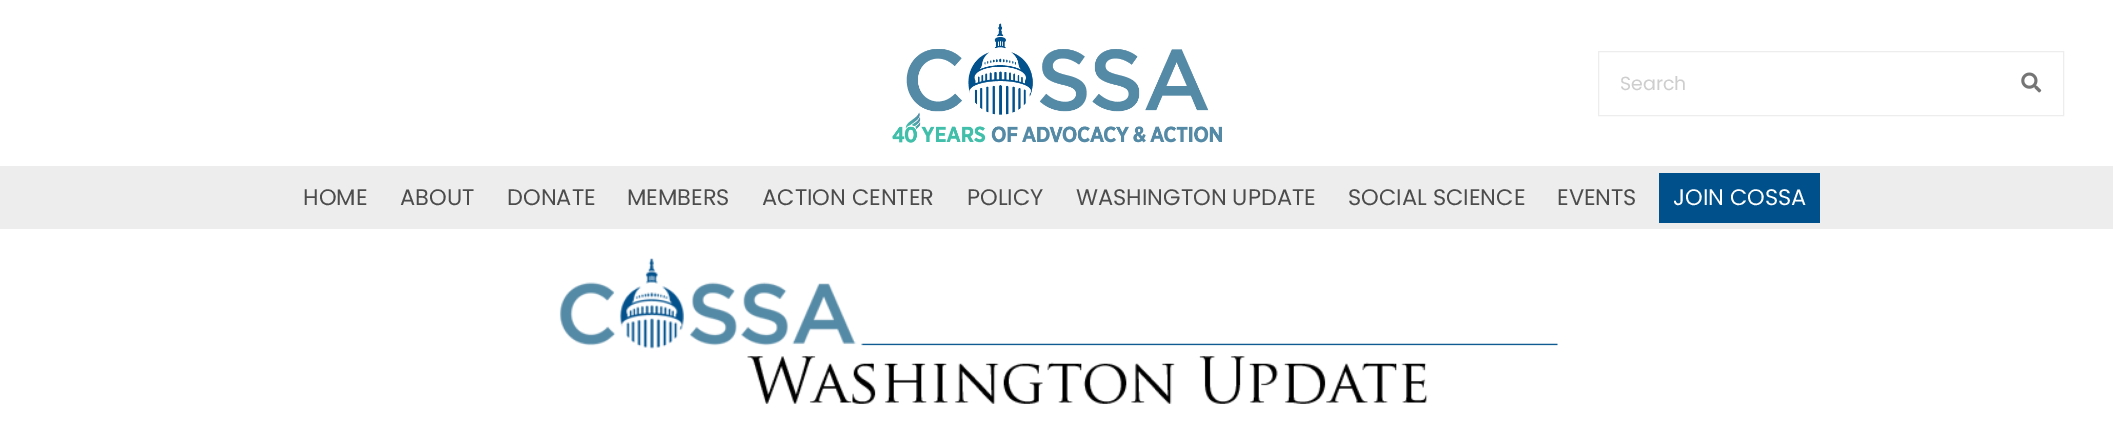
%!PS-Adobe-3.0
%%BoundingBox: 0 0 2113 443
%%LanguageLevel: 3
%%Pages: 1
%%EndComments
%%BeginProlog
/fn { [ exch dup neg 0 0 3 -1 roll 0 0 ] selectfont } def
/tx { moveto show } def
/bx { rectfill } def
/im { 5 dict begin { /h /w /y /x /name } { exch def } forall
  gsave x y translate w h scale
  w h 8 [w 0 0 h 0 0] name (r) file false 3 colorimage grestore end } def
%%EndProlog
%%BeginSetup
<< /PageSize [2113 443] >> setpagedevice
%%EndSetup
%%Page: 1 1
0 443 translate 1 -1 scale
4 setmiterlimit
1 setgray
0 0 2113 443 bx
(image0.raw) 892 23 330 120 im
0.929 setgray
1598.5 51.5 465 64 rectstroke
/Poppins-Regular 19 fn
0.808 setgray
(Search) 1620 90 tx
(image1.raw) 2021 72 21 21 im
0.929 setgray
0 166 2113 63 bx
/Poppins-Regular 22.5 fn
0.298 setgray
(HOME) 303 205 tx
(ABOUT) 400 205 tx
(DONATE) 507 205 tx
(MEMBERS) 627 205 tx
(ACTION CENTER) 762 205 tx
(POLICY) 967 205 tx
(WASHINGTON UPDATE) 1076 205 tx
(SOCIAL SCIENCE) 1348 205 tx
(EVENTS) 1557 205 tx
0 0.318 0.545 setrgbcolor
1659 173 161 50 bx
1 setgray
(JOIN COSSA) 1673 205 tx
(image2.raw) 559 258 999 146 im
showpage
%%EOF
